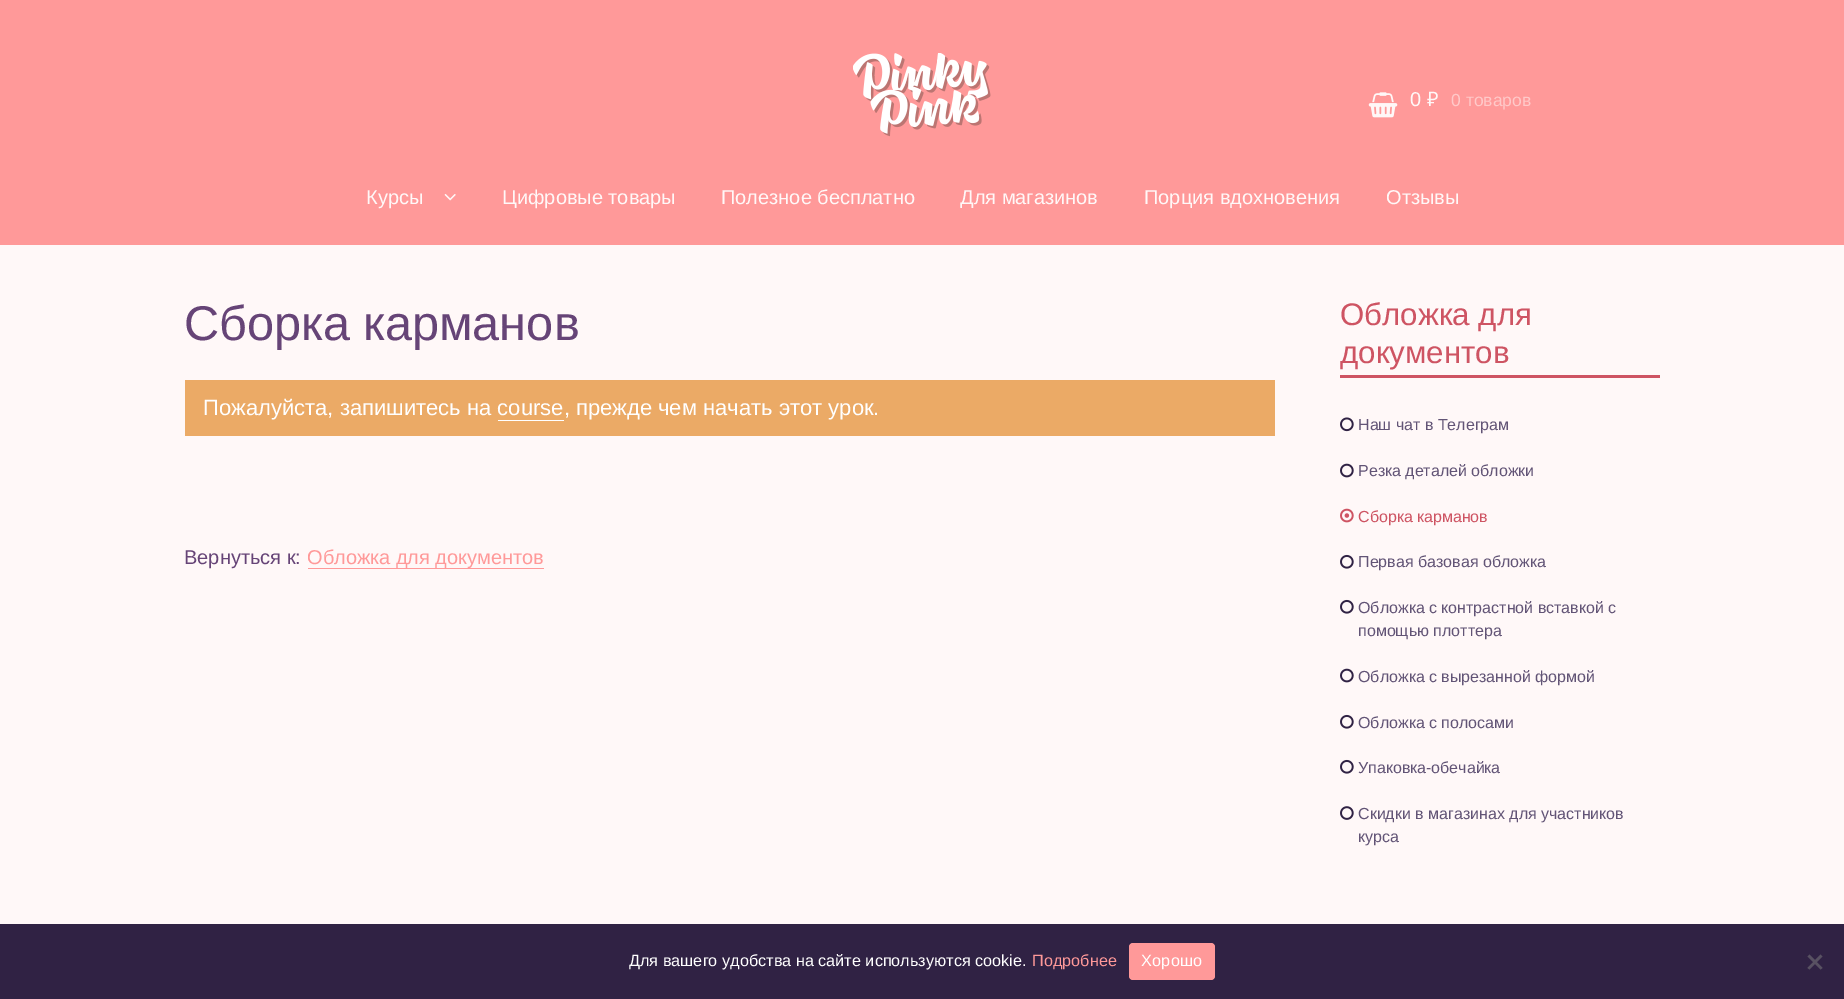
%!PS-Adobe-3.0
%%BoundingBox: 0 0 1844 999
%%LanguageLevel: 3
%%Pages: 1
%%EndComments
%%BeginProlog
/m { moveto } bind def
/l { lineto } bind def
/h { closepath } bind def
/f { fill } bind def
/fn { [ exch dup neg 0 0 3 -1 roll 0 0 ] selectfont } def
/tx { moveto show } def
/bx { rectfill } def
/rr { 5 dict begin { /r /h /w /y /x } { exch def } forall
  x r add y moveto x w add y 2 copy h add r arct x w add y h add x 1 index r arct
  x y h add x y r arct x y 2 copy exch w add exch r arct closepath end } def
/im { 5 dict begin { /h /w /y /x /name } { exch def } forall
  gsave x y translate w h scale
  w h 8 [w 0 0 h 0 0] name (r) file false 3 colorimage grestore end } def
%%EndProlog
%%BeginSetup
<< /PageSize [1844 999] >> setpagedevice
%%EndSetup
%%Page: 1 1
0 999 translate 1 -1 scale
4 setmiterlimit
1 0.973 0.973 setrgbcolor
0 0 1844 999 bx
1 0.6 0.6 setrgbcolor
0 0 1844 245 bx
(image0.raw) 853 53 138 84 im
(image1.raw) 1368 92 30 26 im
/LiberationSans-Regular 20 fn
1 0.973 0.973 setrgbcolor
(0) 1410 106 tx
/NotoSans-Regular 20 fn
(₽) 1427 106 tx
/LiberationSans-Regular 17.5 fn
1 0.788 0.788 setrgbcolor
(0 товаров) 1451 106 tx
/LiberationSans-Regular 20 fn
1 0.973 0.973 setrgbcolor
(Курсы) 366 204 tx
(image2.raw) 444 194 12 7 im
(Цифровые товары) 502 204 tx
(Полезное бесплатно) 721 204 tx
(Для магазинов) 960 204 tx
(Порция вдохновения) 1144 204 tx
(Отзывы) 1386 204 tx
/LiberationSans-Regular 48.75 fn
0.4 0.267 0.467 setrgbcolor
(Сборка карманов) 184 340 tx
0.922 0.667 0.4 setrgbcolor
185 380 1090 56 bx
/LiberationSans-Regular 22 fn
1 setgray
(Пожалуйста, запишитесь на course, прежде чем начать этот урок.) 203 415 tx
498 420 66 1 bx
/LiberationSans-Regular 20 fn
0.4 0.267 0.467 setrgbcolor
(Вернуться к:) 184 564 tx
1 0.6 0.6 setrgbcolor
308 568 236 1 bx
(Обложка для документов) 307 564 tx
0.808 0.329 0.388 setrgbcolor
1340 375 320 3 bx
/LiberationSans-Regular 31.25 fn
(Обложка для) 1340 325 tx
(документов) 1340 363 tx
(image3.raw) 1340 417 14 15 im
/LiberationSans-Regular 16 fn
0.384 0.329 0.463 setrgbcolor
(Наш чат в Телеграм) 1358 430 tx
(image4.raw) 1340 463 14 15 im
(Резка деталей обложки) 1358 476 tx
(image5.raw) 1340 508 14 15 im
0.808 0.329 0.388 setrgbcolor
(Сборка карманов) 1358 522 tx
(image6.raw) 1340 554 14 15 im
0.384 0.329 0.463 setrgbcolor
(Первая базовая обложка) 1358 567 tx
(image6.raw) 1340 599 14 15 im
(Обложка с контрастной вставкой с) 1358 613 tx
(помощью плоттера) 1358 636 tx
(image4.raw) 1340 668 14 15 im
(Обложка с вырезанной формой) 1358 682 tx
(image6.raw) 1340 714 14 15 im
(Обложка с полосами) 1358 728 tx
(image6.raw) 1340 759 14 15 im
(Упаковка-обечайка) 1358 773 tx
(image7.raw) 1340 806 14 14 im
(Скидки в магазинах для участников) 1358 819 tx
(курса) 1358 842 tx
0.188 0.133 0.267 setrgbcolor
0 924 1844 75 bx
/LiberationSans-Regular 16.25 fn
1 setgray
(Для вашего удобства на сайте используются cookie.) 629 966 tx
1 0.6 0.6 setrgbcolor
(Подробнее) 1032 966 tx
1129 943 86 37 4 rr f
1 setgray
1141 966 m 0.25 0 (Хорошо) ashow
0.345 0.318 0.384 setrgbcolor
1820.5 954.5 m 1822.5 956.5 l 1809.5 969.5 l 1807.5 968 l h f
1807.5 956.5 m 1809.5 954.5 l 1822.5 968 l 1820.5 969.5 l h f
showpage
%%EOF
